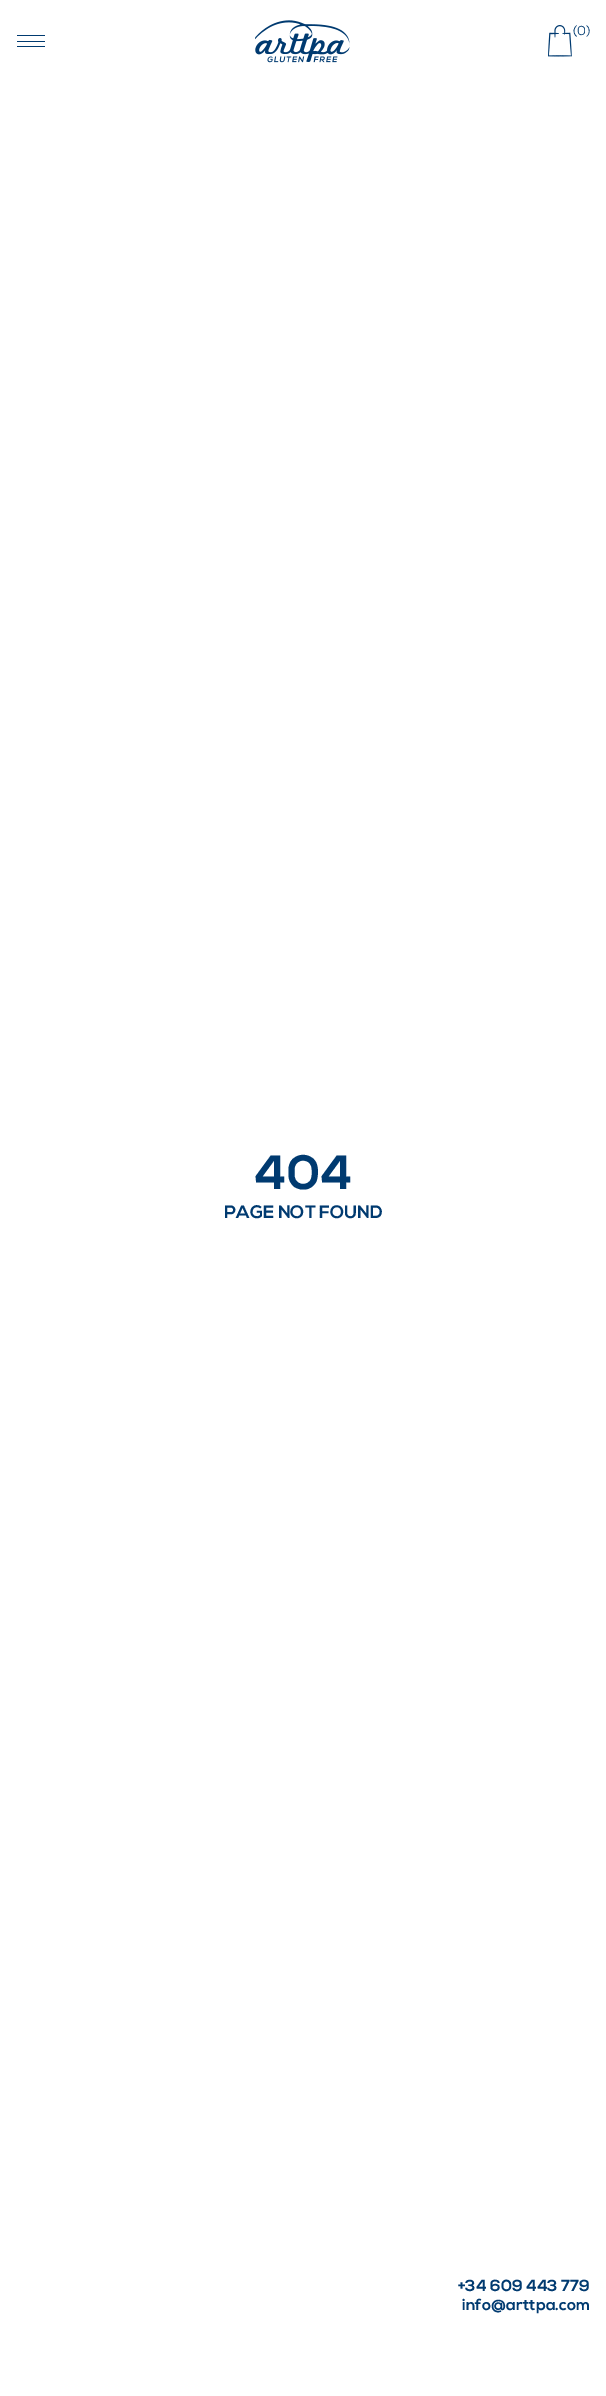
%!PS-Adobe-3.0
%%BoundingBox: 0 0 606 2396
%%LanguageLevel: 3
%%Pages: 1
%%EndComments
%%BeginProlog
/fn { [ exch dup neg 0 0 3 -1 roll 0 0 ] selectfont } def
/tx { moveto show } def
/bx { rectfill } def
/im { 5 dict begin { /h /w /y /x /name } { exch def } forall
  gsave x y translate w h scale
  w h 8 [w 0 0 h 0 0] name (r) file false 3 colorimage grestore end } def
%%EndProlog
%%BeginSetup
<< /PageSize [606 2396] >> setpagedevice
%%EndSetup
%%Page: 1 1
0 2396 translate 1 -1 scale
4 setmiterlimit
1 setgray
0 0 606 2396 bx
(image0.raw) 255 20 95 43 im
(image1.raw) 548 25 24 32 im
/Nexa-Regular 13 fn
0 0.227 0.439 setrgbcolor
(\(0\)) 573 35 tx
17 35 28 1 bx
17 41 28 1 bx
17 46 28 1 bx
/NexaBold-Bold 48 fn
(404) 254 1189 tx
/NexaBold-Bold 18 fn
(PAGE NOT FOUND) 224 1218 tx
/NexaBold-Bold 16 fn
(+34 609 443 779) 458 2291 tx
(info@arttpa.com) 462 2310 tx
showpage
%%EOF
